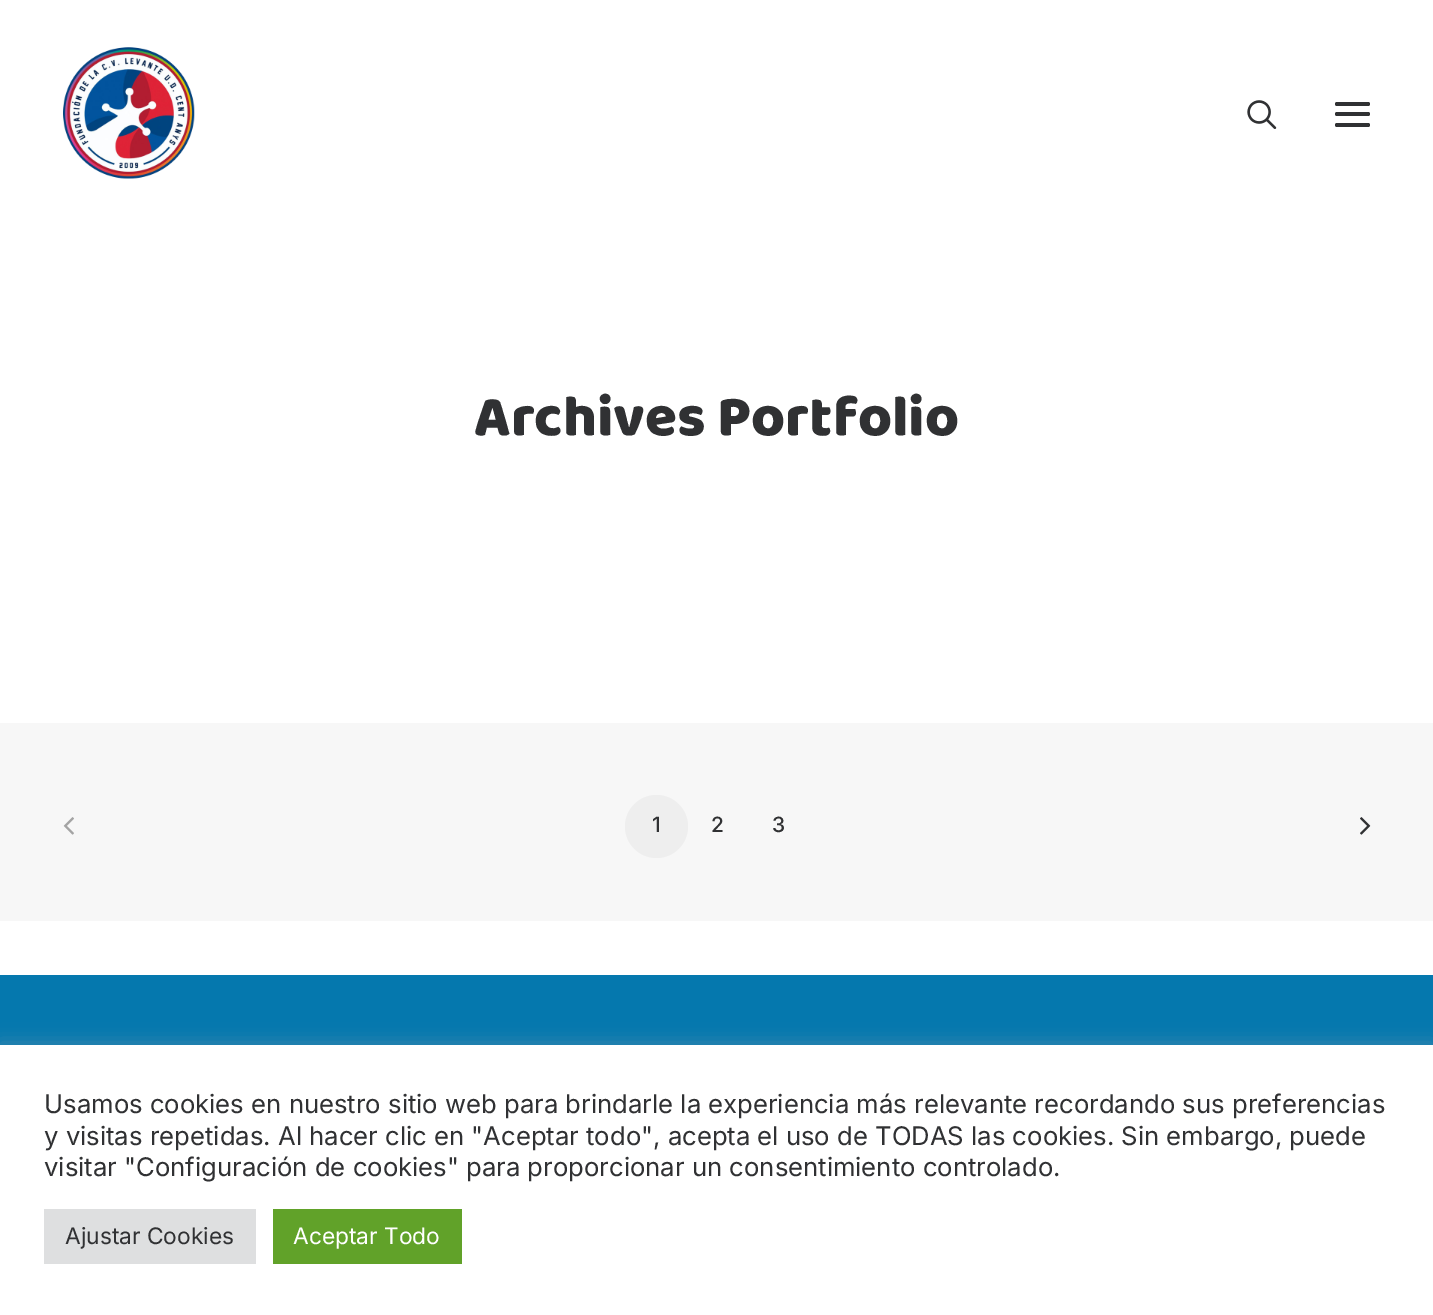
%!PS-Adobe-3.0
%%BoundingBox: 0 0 1433 1315
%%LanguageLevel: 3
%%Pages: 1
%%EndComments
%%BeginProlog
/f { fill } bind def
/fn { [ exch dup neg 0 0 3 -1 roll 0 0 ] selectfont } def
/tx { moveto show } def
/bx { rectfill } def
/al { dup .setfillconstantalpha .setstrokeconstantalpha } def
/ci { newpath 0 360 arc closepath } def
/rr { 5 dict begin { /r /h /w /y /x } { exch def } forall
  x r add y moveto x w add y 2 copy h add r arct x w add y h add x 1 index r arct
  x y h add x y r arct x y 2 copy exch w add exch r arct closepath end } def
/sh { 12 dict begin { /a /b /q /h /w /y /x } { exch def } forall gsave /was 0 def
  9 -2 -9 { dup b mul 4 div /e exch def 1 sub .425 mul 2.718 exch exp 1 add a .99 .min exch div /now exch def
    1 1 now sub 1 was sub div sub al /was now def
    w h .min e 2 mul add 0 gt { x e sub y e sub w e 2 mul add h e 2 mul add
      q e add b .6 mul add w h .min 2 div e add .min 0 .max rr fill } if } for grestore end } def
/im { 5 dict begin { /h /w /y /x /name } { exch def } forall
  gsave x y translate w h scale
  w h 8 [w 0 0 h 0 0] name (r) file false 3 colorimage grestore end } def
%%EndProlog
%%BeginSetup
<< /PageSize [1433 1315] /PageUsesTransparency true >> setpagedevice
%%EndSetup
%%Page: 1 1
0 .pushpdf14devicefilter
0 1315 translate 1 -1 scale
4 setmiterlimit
1 setgray
0 0 1433 1315 bx
(image0.raw) 63 47 132 132 im
(image1.raw) 1247 100 30 29 im
0.188 0.192 0.2 setrgbcolor
1335 112 35 4 2 rr f
1335 102 35 4 2 rr f
1335 123 35 4 2 rr f
/Baloo2-ExtraBold 58.25 fn
(Archives Portfolio) 474 435 tx
0.969 setgray
0 723 1433 198 bx
(image2.raw) 63 817 11 18 im
0.933 setgray
656.5 826.5 31.5 ci f
/Inter-Medium 21 fn
0.188 0.192 0.2 setrgbcolor
(1) 652 832 tx
(2) 711 832 tx
(3) 772 832 tx
(image3.raw) 1360 817 11 18 im
0.02 0.471 0.682 setrgbcolor
0 975 1433 70 bx
0.675 0.671 0.671 setrgbcolor
0 1043 1433 271 0 9 0.3 sh
1 setgray
0 1045 1433 270 bx
/Inter-Regular 25.67 fn
0.188 0.192 0.2 setrgbcolor
(Usamos cookies en nuestro sitio web para brindarle la experiencia más relevante recordando sus preferencias) 44 1113 tx
(y visitas repetidas. Al hacer clic en "Aceptar todo", acepta el uso de TODAS las cookies. Sin embargo, puede) 44 1145 tx
(visitar "Configuración de cookies" para proporcionar un consentimiento controlado.) 44 1176 tx
0.871 0.875 0.878 setrgbcolor
44 1209 212 55 bx
/Inter-Regular 22.75 fn
0.188 0.192 0.2 setrgbcolor
(Ajustar Cookies) 65 1244 tx
0.38 0.635 0.161 setrgbcolor
273 1209 189 55 bx
1 setgray
(Aceptar Todo) 293 1244 tx
.poppdf14devicefilter showpage
%%EOF
